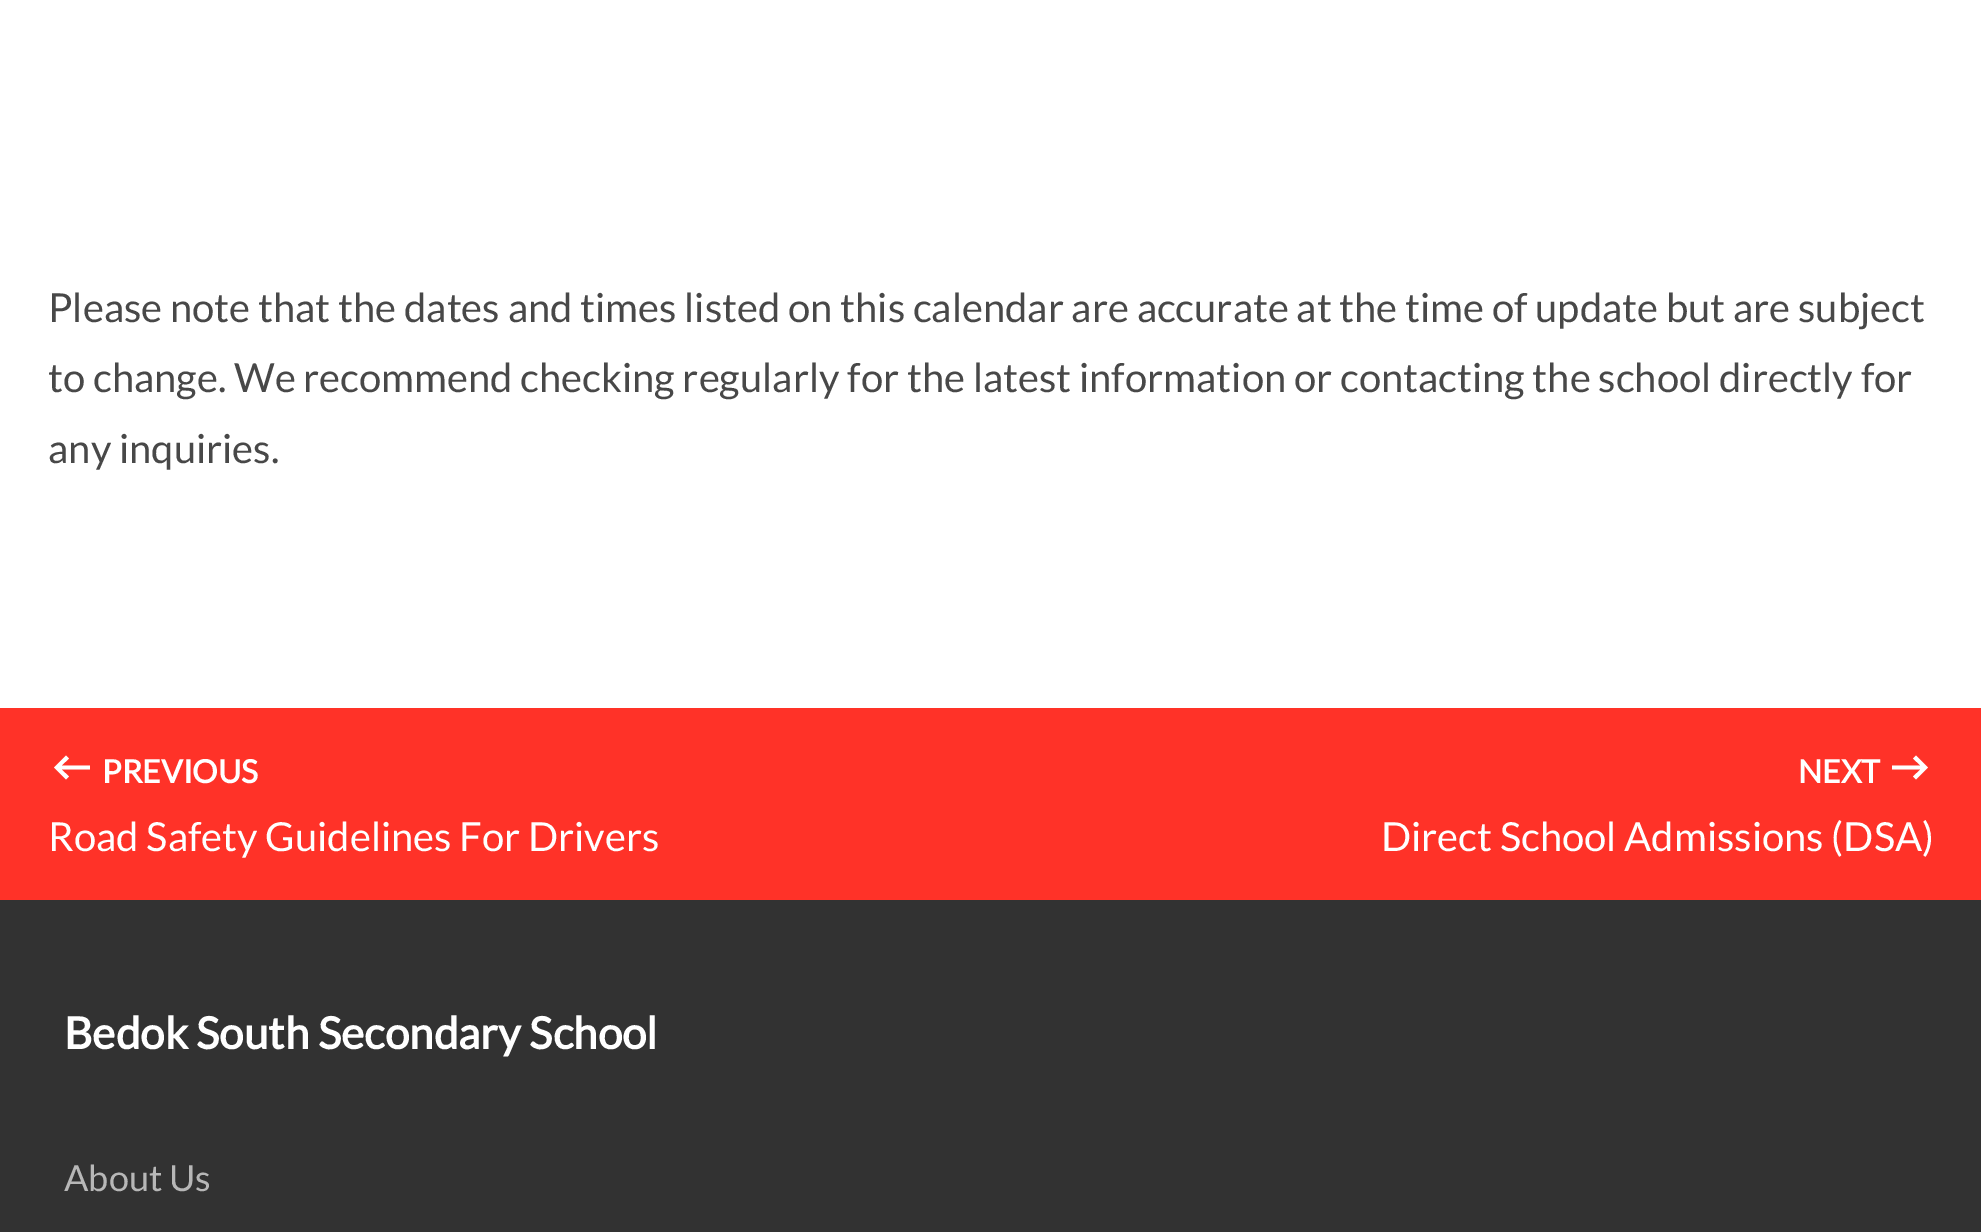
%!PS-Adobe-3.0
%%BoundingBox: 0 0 1981 1232
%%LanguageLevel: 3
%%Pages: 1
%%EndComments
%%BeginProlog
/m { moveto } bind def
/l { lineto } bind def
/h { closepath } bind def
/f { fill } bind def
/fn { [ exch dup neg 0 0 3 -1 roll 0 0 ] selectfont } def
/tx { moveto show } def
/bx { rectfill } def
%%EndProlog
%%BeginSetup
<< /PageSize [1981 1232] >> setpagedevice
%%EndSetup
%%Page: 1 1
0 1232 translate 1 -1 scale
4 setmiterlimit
1 setgray
0 0 1981 1232 bx
/Lato-Regular 40 fn
0.282 setgray
(Please note that the dates and times listed on this calendar are accurate at the time of update but are subject) 48 322 tx
(to change. We recommend checking regularly for the latest information or contacting the school directly for) 48 392 tx
(any inquiries.) 48 463 tx
1 0.196 0.157 setrgbcolor
0 708 1981 192 bx
1 setgray
56 769.5 m 54 767.5 l 66 755.5 l 69 758.5 l 61.5 765.5 l 90 765.5 l 90 769.5 l 61.5 769.5 l 69 776.5 l 66 779.5 l h f
/Lato-Bold 32 fn
(PREVIOUS) 102 783 tx
/Lato-Regular 40 fn
(Road Safety Guidelines For Drivers) 48 851 tx
/Lato-Bold 32 fn
(NEXT) 1798 783 tx
1926 769.5 m 1928 767.5 l 1916 755.5 l 1913 758.5 l 1920.5 765.5 l 1892 765.5 l 1892 769.5 l 1920.5 769.5 l 1913 776.5 l 1916 779.5 l h f
/Lato-Regular 40 fn
(Direct School Admissions \(DSA\)) 1381 851 tx
0.196 setgray
0 900 1981 332 bx
/Lato-Bold 44 fn
1 setgray
(Bedok South Secondary School) 64 1049 tx
/Lato-Regular 36 fn
0.718 setgray
(About Us) 64 1191 tx
showpage
%%EOF
